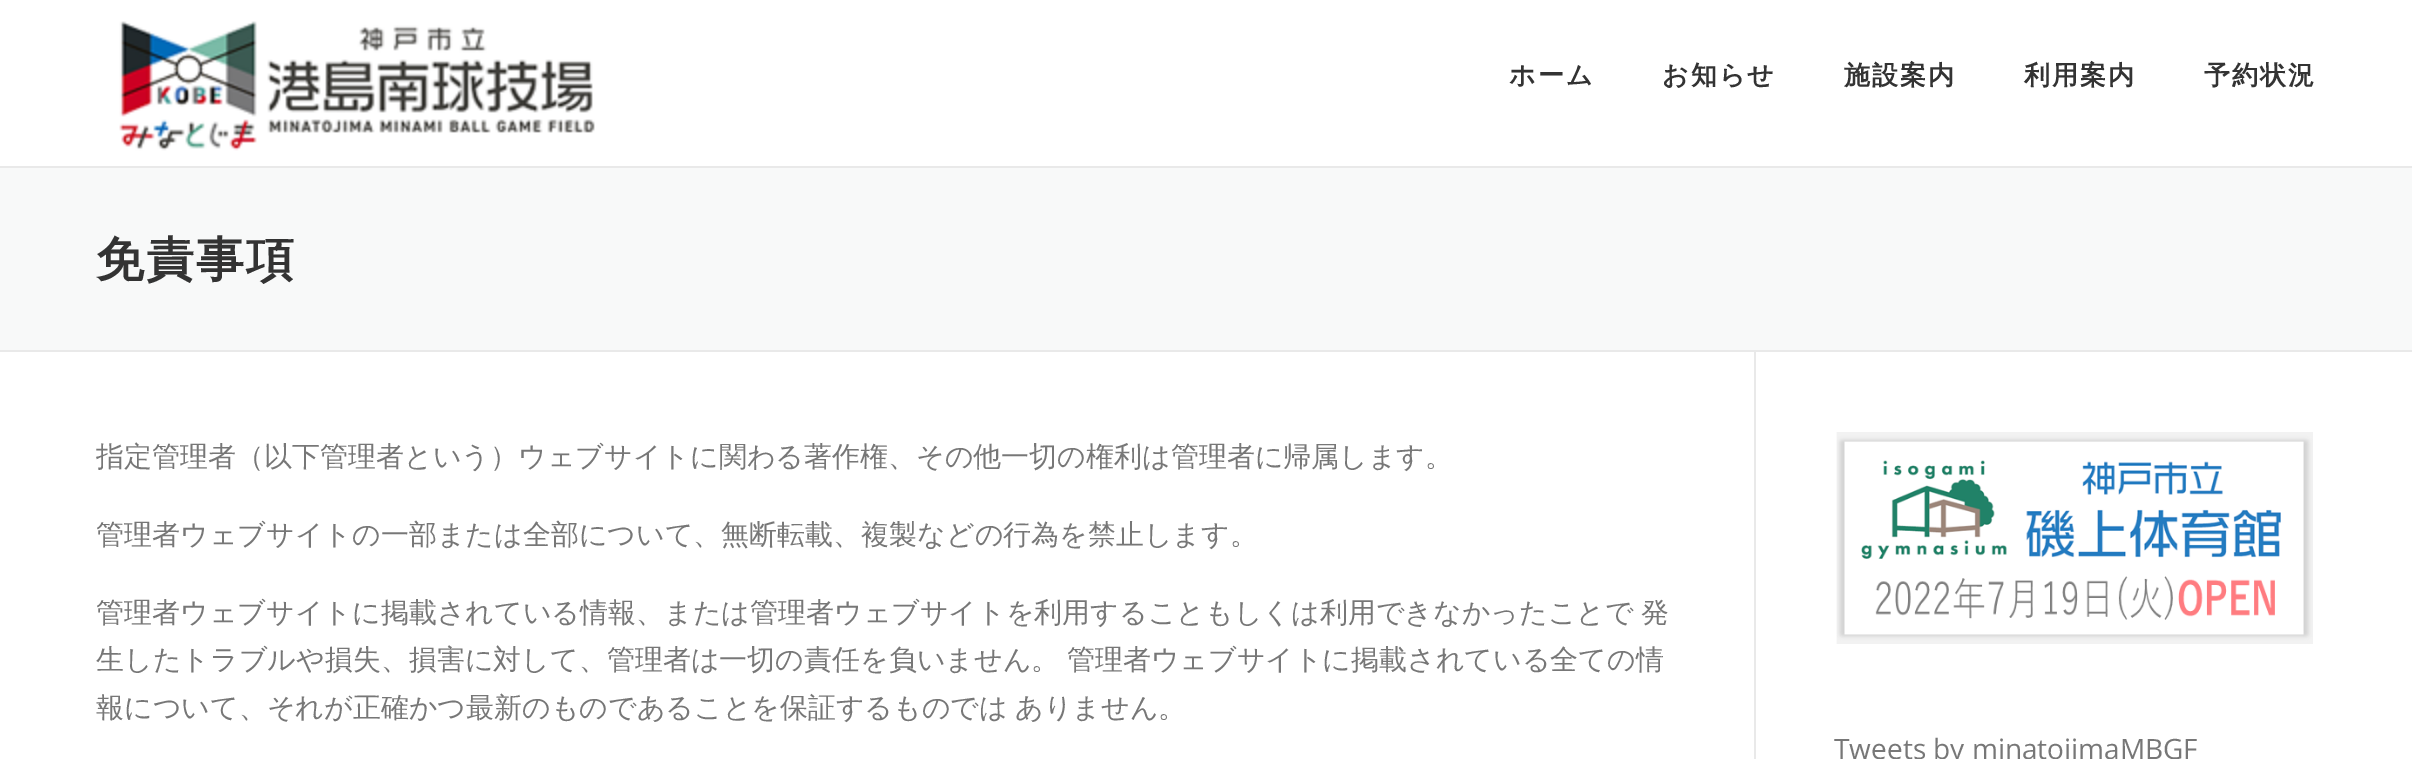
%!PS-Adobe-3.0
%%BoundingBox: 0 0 2412 759
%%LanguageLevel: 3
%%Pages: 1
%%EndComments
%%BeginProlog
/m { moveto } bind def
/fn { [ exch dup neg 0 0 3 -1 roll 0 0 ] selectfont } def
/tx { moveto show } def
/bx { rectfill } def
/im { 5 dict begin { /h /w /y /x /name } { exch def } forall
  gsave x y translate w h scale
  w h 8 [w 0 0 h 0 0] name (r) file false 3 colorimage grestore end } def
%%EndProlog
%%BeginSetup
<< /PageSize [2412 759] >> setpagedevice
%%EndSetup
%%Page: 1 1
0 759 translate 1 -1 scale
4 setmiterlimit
1 setgray
0 0 2412 759 bx
(image0.raw) 119 21 476 130 im
/WenQuanYiZenHei-Bold 26 fn
0.2 setgray
1509 84 m 2 0 (ホーム) ashow
1662 84 m 2 0 (お知らせ) ashow
1844 84 m 2 0 (施設案内) ashow
2024 84 m 2 0 (利用案内) ashow
2204 84 m 2 0 (予約状況) ashow
0.973 0.976 0.976 setrgbcolor
0 168 2412 182 bx
0.914 setgray
0 166 2412 2 bx
0 350 2412 2 bx
/WenQuanYiZenHei-Bold 48 fn
0.2 setgray
96 276 m 2 0 (免責事項) ashow
0.914 setgray
1754 352 2 407 bx
/WenQuanYiZenHei-Medium 28 fn
0.467 setgray
(指定管理者（以下管理者という）ウェブサイトに関わる著作権、その他一切の権利は管理者に帰属します。) 96 466 tx
(管理者ウェブサイトの一部または全部について、無断転載、複製などの行為を禁止します。) 96 544 tx
96 622 m -1 0 32 (管理者ウェブサイトに掲載されている情報、または管理者ウェブサイトを利用することもしくは利用できなかったことで 発) widthshow
96 669 m -1 0 32 (生したトラブルや損失、損害に対して、管理者は一切の責任を負いません。 管理者ウェブサイトに掲載されている全ての情) widthshow
96 717 m -1 0 32 (報について、それが正確かつ最新のものであることを保証するものでは ありません。) widthshow
(image1.raw) 1836 432 477 212 im
/OpenSans-Regular 28 fn
(Tweets by minatojimaMBGF) 1834 759 tx
showpage
%%EOF
